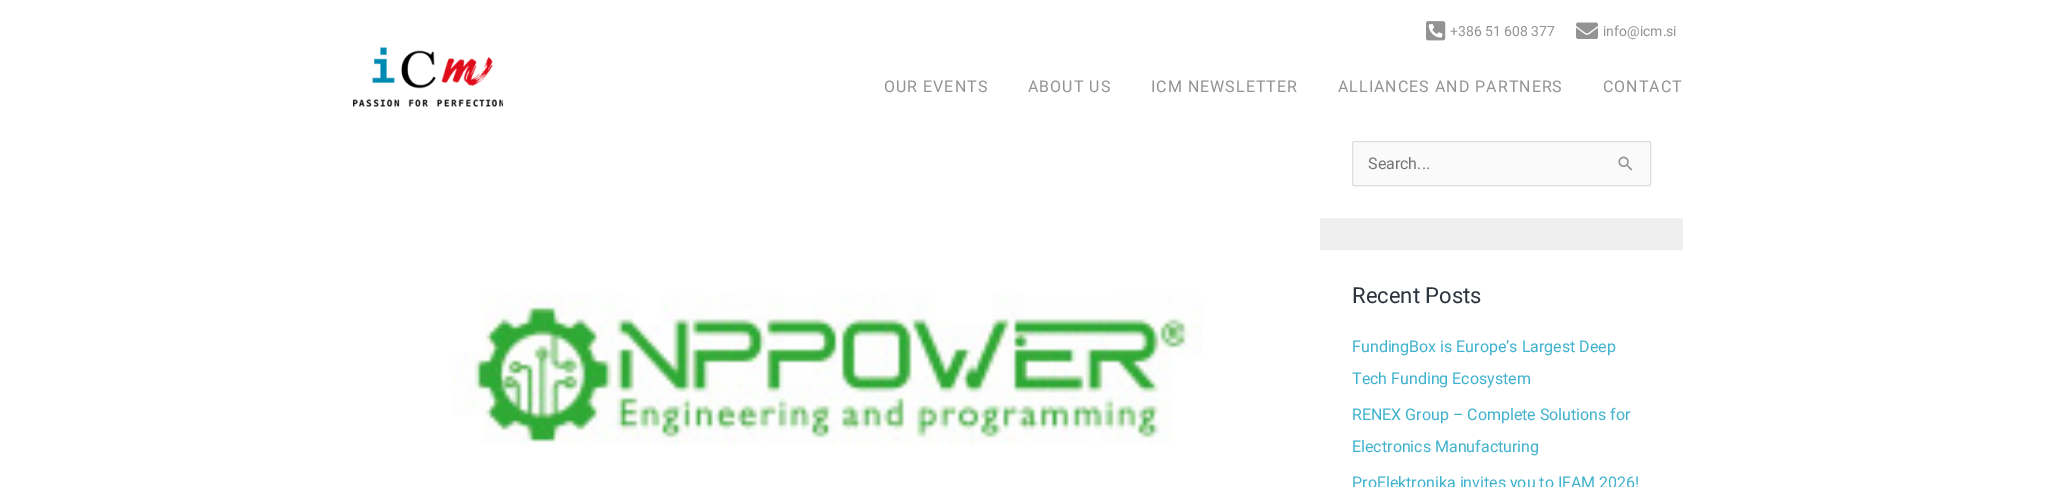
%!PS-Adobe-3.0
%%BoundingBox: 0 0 2055 487
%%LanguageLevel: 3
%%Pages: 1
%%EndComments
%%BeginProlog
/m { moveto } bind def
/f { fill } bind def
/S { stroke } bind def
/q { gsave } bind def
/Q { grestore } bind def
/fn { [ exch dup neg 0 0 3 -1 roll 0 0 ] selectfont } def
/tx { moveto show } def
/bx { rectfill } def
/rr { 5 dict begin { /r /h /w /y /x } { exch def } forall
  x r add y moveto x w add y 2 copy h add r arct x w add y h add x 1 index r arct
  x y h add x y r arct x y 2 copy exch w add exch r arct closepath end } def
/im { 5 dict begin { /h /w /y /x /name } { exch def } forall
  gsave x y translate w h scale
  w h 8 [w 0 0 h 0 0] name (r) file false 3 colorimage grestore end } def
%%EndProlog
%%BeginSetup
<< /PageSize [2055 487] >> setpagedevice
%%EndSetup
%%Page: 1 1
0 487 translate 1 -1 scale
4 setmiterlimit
1 setgray
0 0 2055 487 bx
(image0.raw) 1426 21 20 20 im
/Roboto-Regular 14 fn
0.576 setgray
(+386 51 608 377) 1450 36 tx
(image1.raw) 1576 22 22 17 im
(info@icm.si) 1603 36 tx
(image2.raw) 353 47 150 60 im
/Roboto-Regular 16 fn
884 92 m 1 0 (OUR EVENTS) ashow
1028 92 m 1 0 (ABOUT US) ashow
1151 92 m 1 0 (ICM NEWSLETTER) ashow
1338 92 m 1 0 (ALLIANCES AND PARTNERS) ashow
1603 92 m 1 0 (CONTACT) ashow
(image3.raw) 453 294 750 151 im
0.937 setgray
1320 218 363 32 bx
0.98 setgray
1352.5 141.5 298 44 1.5 rr q f Q
0.867 setgray
S
0.459 setgray
(Search...) 1368 169 tx
(image4.raw) 1618 156 15 15 im
/Roboto-Regular 22 fn
0.176 0.204 0.243 setrgbcolor
(Recent Posts) 1352 303 tx
/Roboto-Regular 16 fn
0.251 0.698 0.804 setrgbcolor
(FundingBox is Europe’s Largest Deep) 1352 352 tx
(Tech Funding Ecosystem) 1352 384 tx
(RENEX Group – Complete Solutions for) 1352 420 tx
(Electronics Manufacturing) 1352 452 tx
(ProElektronika invites you to IFAM 2026!) 1352 488 tx
showpage
%%EOF
